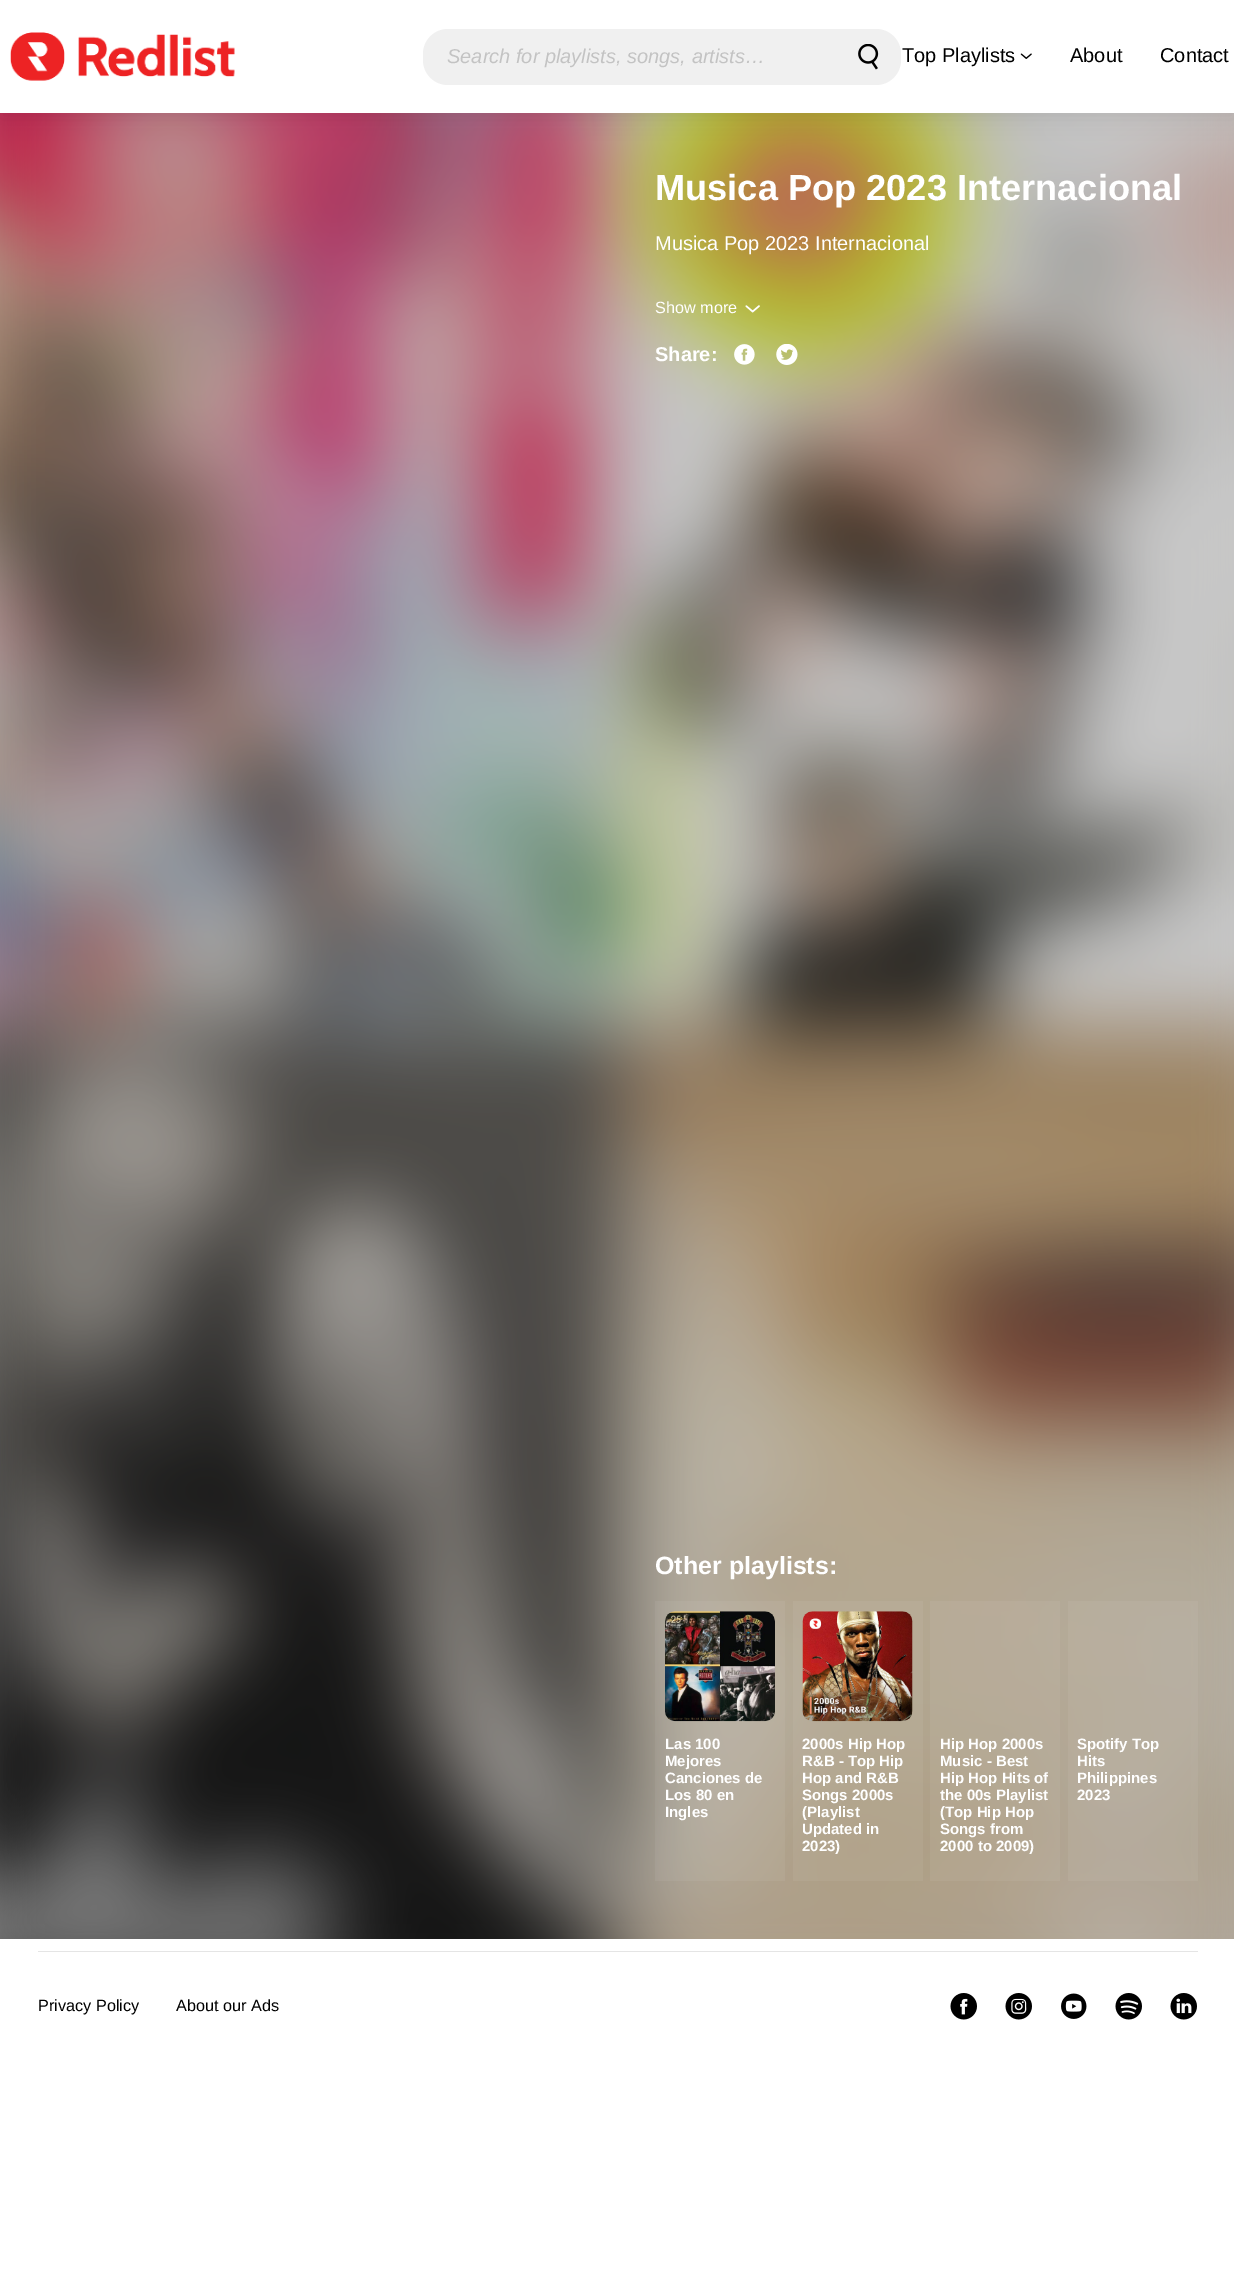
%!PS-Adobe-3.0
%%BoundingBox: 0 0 1234 2282
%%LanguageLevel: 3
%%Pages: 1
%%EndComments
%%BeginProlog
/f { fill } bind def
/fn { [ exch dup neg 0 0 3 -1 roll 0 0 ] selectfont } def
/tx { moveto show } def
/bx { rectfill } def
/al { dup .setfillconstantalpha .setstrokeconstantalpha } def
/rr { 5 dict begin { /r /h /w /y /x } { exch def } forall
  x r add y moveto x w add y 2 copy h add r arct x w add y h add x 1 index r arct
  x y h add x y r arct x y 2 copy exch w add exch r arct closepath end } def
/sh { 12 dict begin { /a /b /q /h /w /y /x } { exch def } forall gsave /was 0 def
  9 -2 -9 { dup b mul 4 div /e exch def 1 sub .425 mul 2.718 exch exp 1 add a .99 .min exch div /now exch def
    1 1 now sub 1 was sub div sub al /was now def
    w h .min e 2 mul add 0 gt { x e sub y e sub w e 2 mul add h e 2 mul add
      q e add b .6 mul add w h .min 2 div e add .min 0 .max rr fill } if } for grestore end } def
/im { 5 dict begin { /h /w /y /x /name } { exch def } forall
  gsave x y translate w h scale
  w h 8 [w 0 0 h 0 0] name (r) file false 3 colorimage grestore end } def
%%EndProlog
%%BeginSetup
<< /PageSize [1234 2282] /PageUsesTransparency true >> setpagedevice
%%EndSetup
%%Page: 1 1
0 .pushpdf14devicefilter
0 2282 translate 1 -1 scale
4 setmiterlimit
1 setgray
0 0 1234 2282 bx
(image3.raw) 0 113 1234 1826 im
0 setgray
0 6 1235 113 0 9.5 0.07 sh
1 setgray
0 0 1234 113 bx
(image0.raw) 10 32 225 49 im
0.941 setgray
423 29 478 56 25 rr f
/LiberationSans-Italic 20 fn
0.765 setgray
(Search for playlists, songs, artists…) 447 63 tx
(image1.raw) 858 44 21 26 im
/Arimo-Regular 20 fn
0 setgray
(Top Playlists) 902 62 tx
(image2.raw) 1020 53 12 6 im
(About) 1070 62 tx
(Contact) 1160 62 tx
/Arimo-Bold 36.2 fn
1 setgray
(Musica Pop 2023 Internacional) 655 200 tx
/Arimo-Regular 20 fn
(Musica Pop 2023 Internacional) 655 250 tx
/LiberationSans-Regular 16.25 fn
(Show more) 655 313 tx
(image4.raw) 745 305 15 8 im
/Arimo-Bold 20 fn
(Share:) 655 361 tx
(image5.raw) 734 344 21 21 im
(image6.raw) 776 344 22 21 im
/Arimo-Bold 25 fn
(Other playlists:) 655 1574 tx
0.05 al
655 1601 130 280 bx
1 al
(image7.raw) 665 1611 110 111 im
/Arimo-Bold 15 fn
(Las 100) 665 1749 tx
(Mejores) 665 1766 tx
(Canciones de) 665 1783 tx
(Los 80 en) 665 1800 tx
(Ingles) 665 1817 tx
0.05 al
793 1601 130 280 bx
1 al
(image8.raw) 802 1611 111 111 im
(2000s Hip Hop) 802 1749 tx
(R&B - Top Hip) 802 1766 tx
(Hop and R&B) 802 1783 tx
(Songs 2000s) 802 1800 tx
(\(Playlist) 802 1817 tx
(Updated in) 802 1834 tx
(2023\)) 802 1851 tx
0.05 al
930 1601 130 280 bx
1 al
(Hip Hop 2000s) 940 1749 tx
(Music - Best) 940 1766 tx
(Hip Hop Hits of) 940 1783 tx
(the 00s Playlist) 940 1800 tx
(\(Top Hip Hop) 940 1817 tx
(Songs from) 940 1834 tx
(2000 to 2009\)) 940 1851 tx
0.05 al
1068 1601 130 280 bx
1 al
(Spotify Top) 1077 1749 tx
(Hits) 1077 1766 tx
(Philippines) 1077 1783 tx
(2023) 1077 1800 tx
0.898 setgray
38 1951 1160 1 bx
/Arimo-Regular 16.25 fn
0 setgray
(Privacy Policy) 38 2011 tx
(About our Ads) 176 2011 tx
(image9.raw) 950 1993 27 27 im
(image10.raw) 1005 1993 27 27 im
(image11.raw) 1061 1993 26 26 im
(image12.raw) 1115 1993 27 27 im
(image13.raw) 1170 1993 27 27 im
.poppdf14devicefilter showpage
%%EOF
